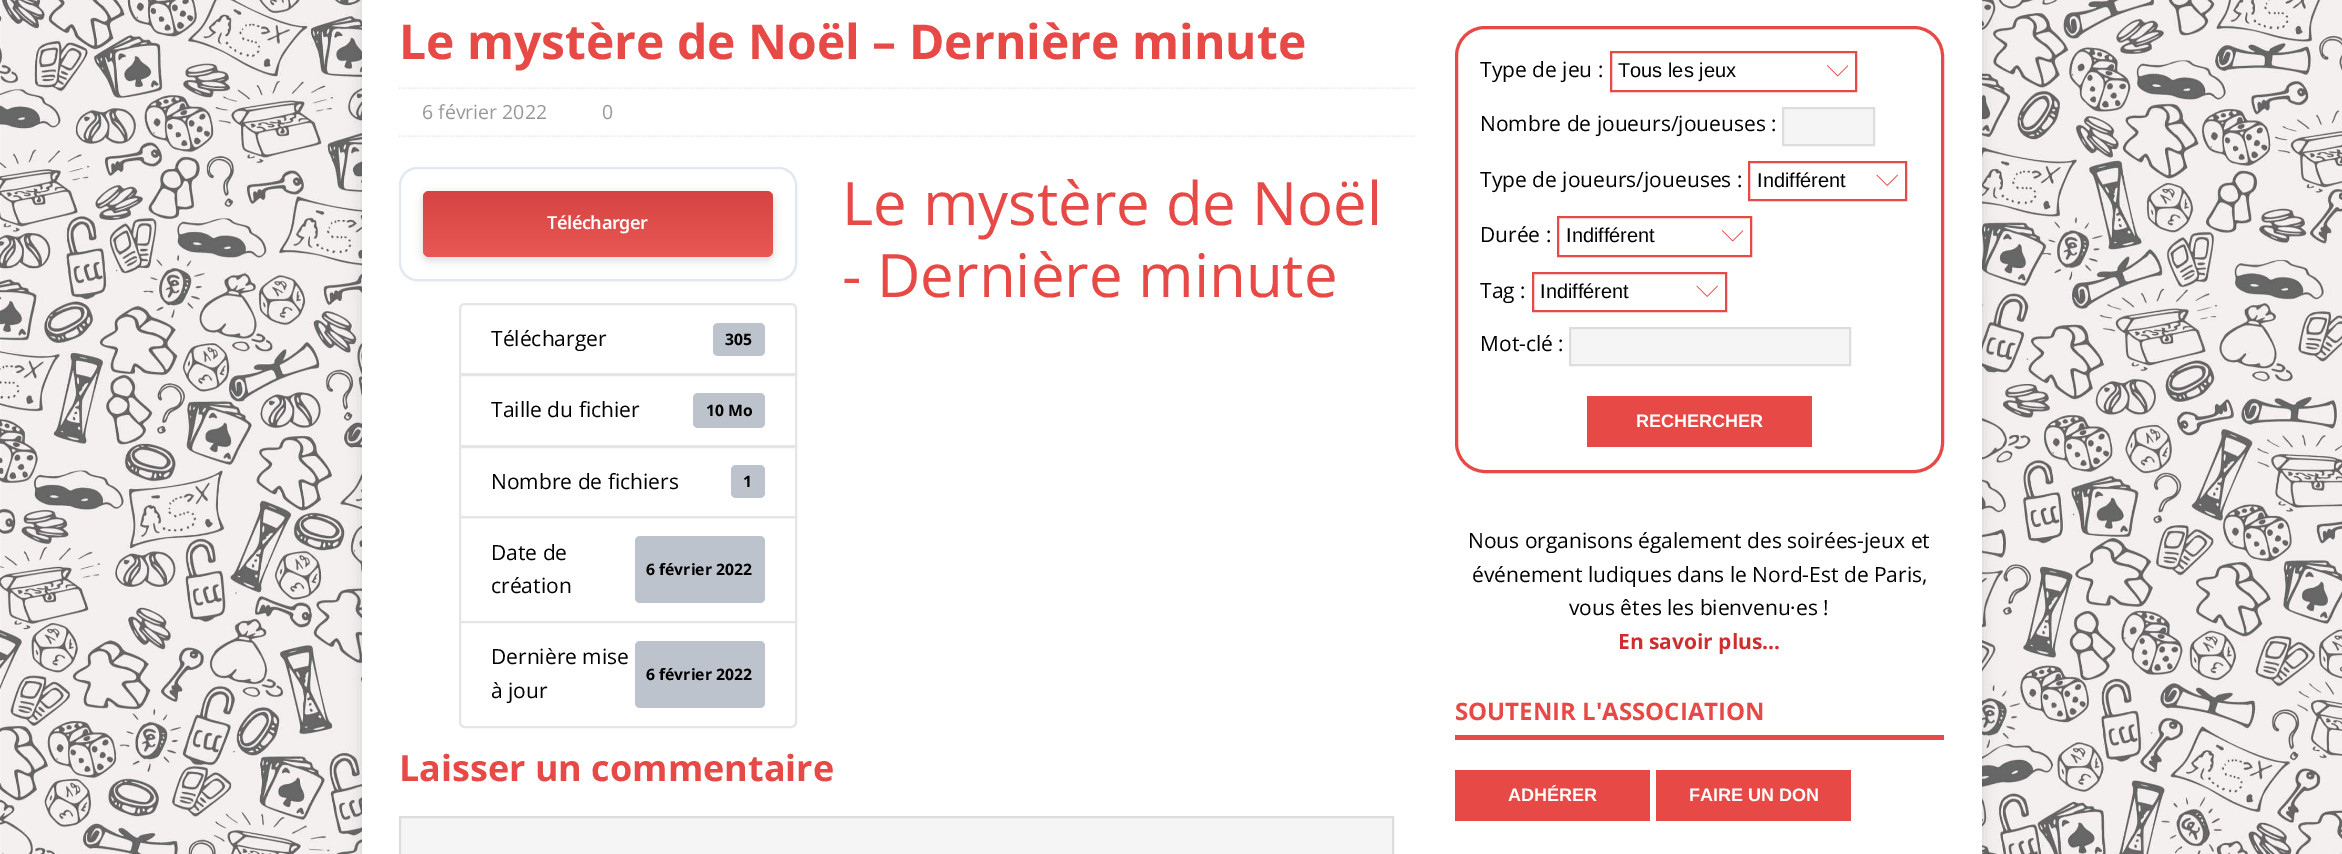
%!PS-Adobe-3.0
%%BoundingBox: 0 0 2342 854
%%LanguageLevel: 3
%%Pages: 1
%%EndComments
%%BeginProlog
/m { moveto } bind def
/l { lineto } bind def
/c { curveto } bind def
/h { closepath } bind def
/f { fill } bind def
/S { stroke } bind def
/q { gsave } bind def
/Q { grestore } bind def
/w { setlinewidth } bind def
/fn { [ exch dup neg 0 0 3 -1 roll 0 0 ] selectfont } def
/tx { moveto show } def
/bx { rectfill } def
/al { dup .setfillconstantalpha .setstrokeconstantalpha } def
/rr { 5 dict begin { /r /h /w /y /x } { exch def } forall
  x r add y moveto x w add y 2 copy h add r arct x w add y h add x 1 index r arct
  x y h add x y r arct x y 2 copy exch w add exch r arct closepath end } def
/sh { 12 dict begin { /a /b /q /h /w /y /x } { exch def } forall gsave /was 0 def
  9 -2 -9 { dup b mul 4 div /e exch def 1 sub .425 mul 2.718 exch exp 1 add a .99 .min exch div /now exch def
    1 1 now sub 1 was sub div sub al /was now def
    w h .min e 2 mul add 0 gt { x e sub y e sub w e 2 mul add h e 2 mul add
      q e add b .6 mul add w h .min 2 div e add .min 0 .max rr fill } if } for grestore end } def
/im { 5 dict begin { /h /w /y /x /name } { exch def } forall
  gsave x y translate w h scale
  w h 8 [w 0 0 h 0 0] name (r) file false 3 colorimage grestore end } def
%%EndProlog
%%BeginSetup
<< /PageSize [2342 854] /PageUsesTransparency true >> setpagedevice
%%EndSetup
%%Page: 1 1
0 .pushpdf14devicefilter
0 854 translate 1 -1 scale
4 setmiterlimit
1 setgray
0 0 2342 854 bx
(image0.raw) 0 0 2342 854 im
0.196 setgray
362 -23 1620 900 0 7.5 0.17 sh
1 setgray
362 0 1620 854 bx
/OpenSans-Bold 48 fn
0.902 0.286 0.275 setrgbcolor
(Le mystère de Noël – Dernière minute) 399 59 tx
0.922 setgray
1.5 w
[1.5 1.5] 0 setdash
399 88 m 1416 88 l S
399 136 m 1416 136 l S
/OpenSans-Regular 19.5 fn
0.592 setgray
(6 février 2022) 422 119 tx
(0) 602 119 tx
0 setgray
399 168 398 114 18 2 0.04 sh
1 setgray
400 168 396 112 17 rr q f Q
0.886 0.91 0.941 setrgbcolor
2 w
[] 0 setdash
S
0 setgray
423 194 350 66 6 4.5 0.15 sh
0.902 0.286 0.275 setrgbcolor
423 191 350 66 6 rr f
0.08 al
q 423 191 350 66 6 rr clip newpath
<< /ShadingType 2 /ColorSpace /DeviceRGB /Coords [598 190 598 257] /Extend [true true] /Function << /FunctionType 2 /Domain [0 1] /C0 [0 0 0] /C1 [1 1 1] /N 1 >> >> shfill Q
/NotoSans-SemiBold 18 fn
1 al
1 setgray
547 229 m -0.4 0 (Télécharger) ashow
0.898 setgray
465 304 m 791 304 l 794 304 796 306 796 309 c 796 374 l 460 374 l 460 309 l 460 306 462 304 465 304 c h S
/OpenSans-Regular 21 fn
0 setgray
(Télécharger) 491 346 tx
0.737 0.765 0.8 setrgbcolor
713 323 52 33 5 rr f
/OpenSans-Bold 15.75 fn
0 setgray
(305) 725 345 tx
0.898 setgray
460 375 336 71 rectstroke
/OpenSans-Regular 21 fn
0 setgray
(Taille du fichier) 491 417 tx
0.737 0.765 0.8 setrgbcolor
693 393 72 35 5 rr f
/OpenSans-Bold 15.75 fn
0 setgray
(10 Mo) 706 416 tx
0.898 setgray
460 447 336 70 rectstroke
/OpenSans-Regular 21 fn
0 setgray
(Nombre de fichiers) 491 489 tx
0.737 0.765 0.8 setrgbcolor
731 465 34 33 5 rr f
/OpenSans-Bold 15.75 fn
0 setgray
(1) 743 487 tx
0.898 setgray
460 517 336 105 rectstroke
/OpenSans-Regular 21 fn
0 setgray
(Date de) 491 560 tx
0.737 0.765 0.8 setrgbcolor
635 536 130 67 5 rr f
/OpenSans-Bold 15.75 fn
0 setgray
(6 février 2022) 646 575 tx
/OpenSans-Regular 21 fn
(création) 491 593 tx
1 setgray
460 622 m 796 622 l 796 722 l 796 725 794 727 791 727 c 465 727 l 462 727 460 725 460 722 c h q f Q
0.898 setgray
S
0 setgray
(Dernière mise) 491 664 tx
0.737 0.765 0.8 setrgbcolor
635 641 130 67 5 rr f
/OpenSans-Bold 15.75 fn
0 setgray
(6 février 2022) 646 680 tx
/OpenSans-Regular 21 fn
(à jour) 491 698 tx
/OpenSans-Regular 60 fn
0.902 0.286 0.275 setrgbcolor
(Le mystère de Noël) 842 225 tx
(- Dernière minute) 842 297 tx
/OpenSans-Bold 36 fn
(Laisser un commentaire) 399 781 tx
0.961 setgray
400 817 m 1393 817 l 1393 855 l 400 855 l h q f Q
0.867 setgray
S
0.902 0.286 0.275 setrgbcolor
3 w
1456.5 27.5 486 444 28.5 rr S
/OpenSans-Regular 21 fn
0 setgray
(Type de jeu :) 1480 77 tx
(image1.raw) 1826 65 22 12 im
0.902 0.286 0.275 setrgbcolor
2 w
1611 52 245 39 rectstroke
/LiberationSans-Regular 20 fn
0 setgray
(Tous les jeux) 1618 77 tx
/OpenSans-Regular 21 fn
(Nombre de joueurs/joueuses :) 1480 131 tx
0.961 setgray
1783 108 m 1874 108 l 1874 145 l 1783 145 l h q f Q
0.867 setgray
S
0 setgray
(Type de joueurs/joueuses :) 1480 187 tx
(image2.raw) 1876 174 22 12 im
0.902 0.286 0.275 setrgbcolor
1749 162 157 38 rectstroke
/LiberationSans-Regular 20 fn
0 setgray
(Indifférent) 1757 187 tx
/OpenSans-Regular 21 fn
(Durée :) 1480 242 tx
(image1.raw) 1721 230 22 12 im
0.902 0.286 0.275 setrgbcolor
1558 217 193 39 rectstroke
/LiberationSans-Regular 20 fn
0 setgray
(Indifférent) 1566 242 tx
/OpenSans-Regular 21 fn
(Tag :) 1480 298 tx
(image2.raw) 1696 285 22 12 im
0.902 0.286 0.275 setrgbcolor
1533 273 193 38 rectstroke
/LiberationSans-Regular 20 fn
0 setgray
(Indifférent) 1540 298 tx
/OpenSans-Regular 21 fn
(Mot-clé :) 1480 351 tx
0.961 setgray
1570 328 m 1850 328 l 1850 365 l 1570 365 l h q f Q
0.867 setgray
S
0.902 0.286 0.275 setrgbcolor
1587 396 225 51 bx
/LiberationSans-Bold 18 fn
1 setgray
(RECHERCHER) 1636 427 tx
/OpenSans-Regular 21 fn
0 setgray
(Nous organisons également des soirées-jeux et) 1468 548 tx
(événement ludiques dans le Nord-Est de Paris,) 1472 582 tx
(vous êtes les bienvenu·es !) 1569 615 tx
/OpenSans-Bold 21 fn
0.812 0.18 0.18 setrgbcolor
(En savoir plus…) 1618 649 tx
0.902 0.286 0.275 setrgbcolor
1455 735 489 5 bx
/OpenSans-Bold 24 fn
(SOUTENIR L'ASSOCIATION) 1455 720 tx
1455 770 195 51 bx
/LiberationSans-Bold 18 fn
1 setgray
(ADHÉRER) 1508 801 tx
0.902 0.286 0.275 setrgbcolor
1656 770 195 51 bx
1 setgray
(FAIRE UN DON) 1689 801 tx
.poppdf14devicefilter showpage
%%EOF
